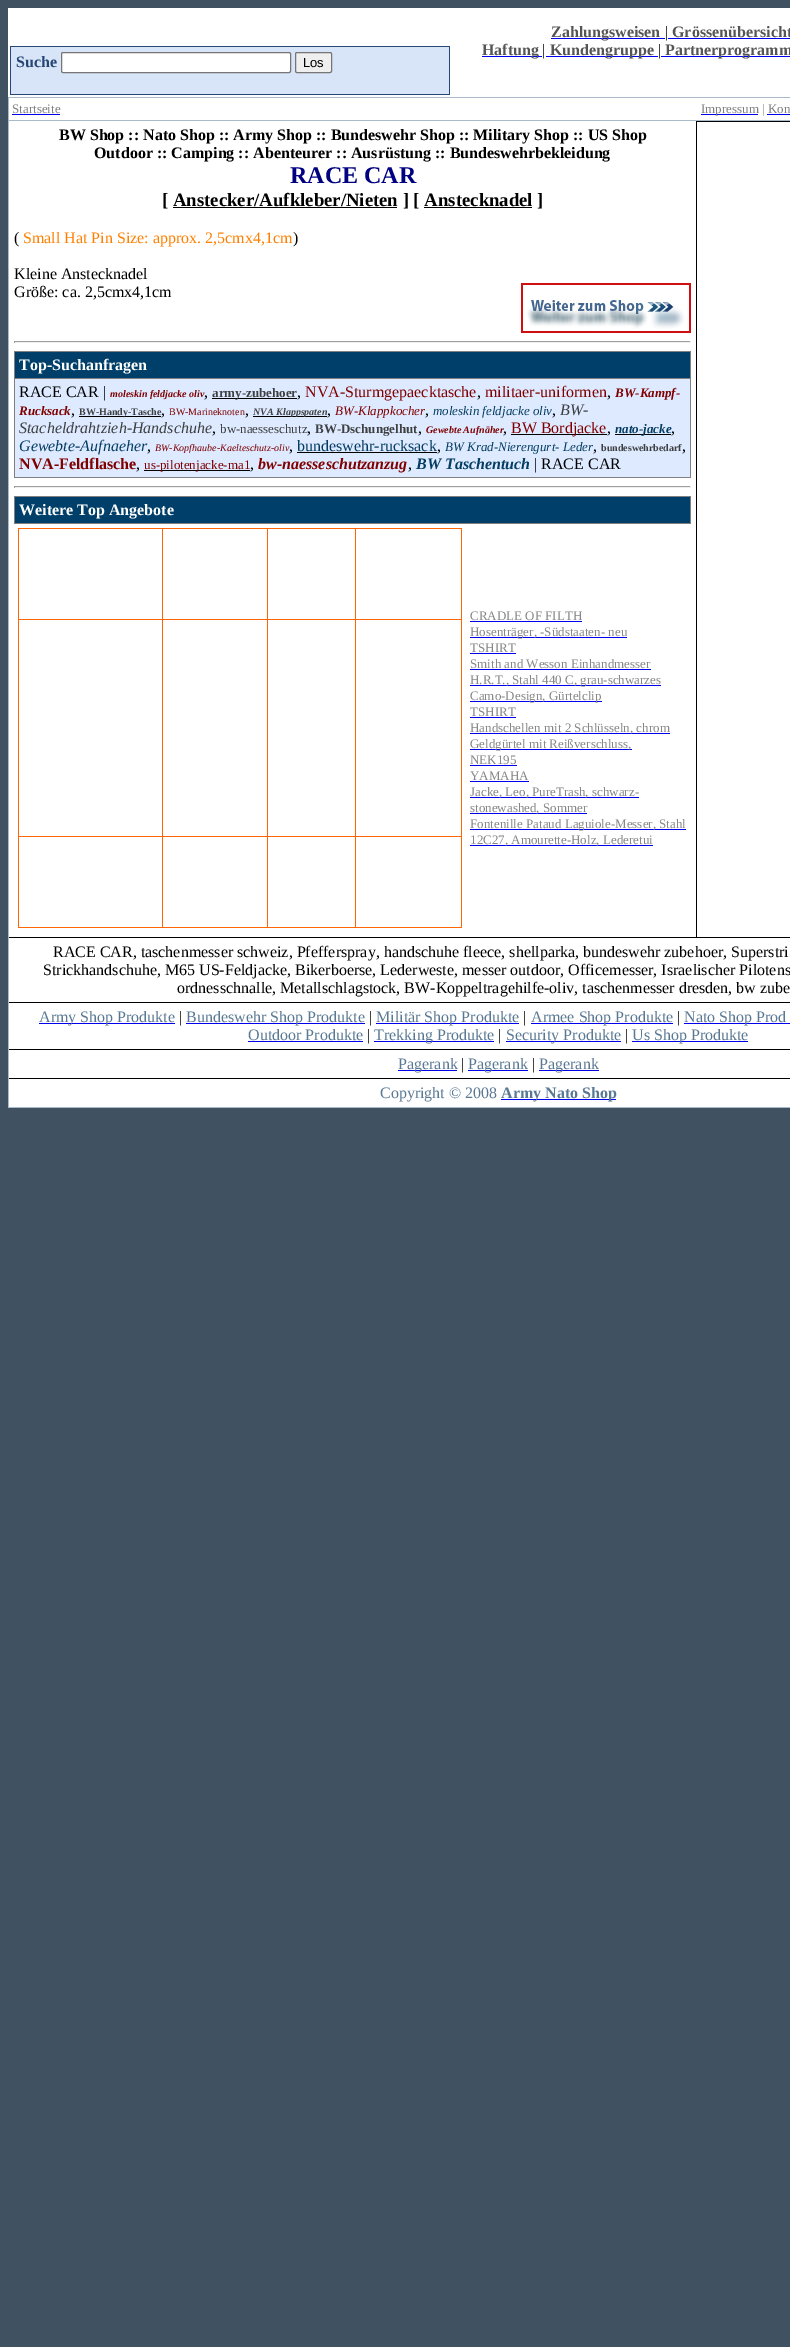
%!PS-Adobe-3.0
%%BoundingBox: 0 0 790 2347
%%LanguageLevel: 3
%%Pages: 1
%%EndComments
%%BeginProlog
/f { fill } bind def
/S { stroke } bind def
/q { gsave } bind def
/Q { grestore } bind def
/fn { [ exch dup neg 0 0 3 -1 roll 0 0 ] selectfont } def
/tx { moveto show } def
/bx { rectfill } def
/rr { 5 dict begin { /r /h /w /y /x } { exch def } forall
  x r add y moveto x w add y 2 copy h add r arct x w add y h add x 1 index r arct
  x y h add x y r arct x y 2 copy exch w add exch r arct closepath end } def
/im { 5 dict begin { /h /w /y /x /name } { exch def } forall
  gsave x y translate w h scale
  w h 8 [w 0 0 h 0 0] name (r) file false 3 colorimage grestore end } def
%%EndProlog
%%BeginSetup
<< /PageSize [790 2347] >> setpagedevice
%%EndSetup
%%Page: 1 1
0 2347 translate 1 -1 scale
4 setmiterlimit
0.251 0.322 0.38 setrgbcolor
0 0 790 2347 bx
1 setgray
8 8 782 89 bx
0 0 0.933 setrgbcolor
551 38 114 1 bx
/LiberationSerif-Bold 16 fn
0.333 setgray
(Zahlungsweisen) 551 37 tx
/LiberationSerif-Regular 16 fn
0 setgray
(|) 665 37 tx
/LiberationSerif-Bold 16 fn
0.333 setgray
(Grössenübersicht) 672 37 tx
0 0 0.933 setrgbcolor
668 38 122 1 bx
482 56 56 1 bx
0.333 setgray
(Haftung) 482 55 tx
0 0 0.933 setrgbcolor
538 56 4 1 bx
/LiberationSerif-Regular 16 fn
0 setgray
(|) 542 55 tx
0 0 0.933 setrgbcolor
546 56 112 1 bx
/LiberationSerif-Bold 16 fn
0.333 setgray
(Kundengruppe) 550 55 tx
/LiberationSerif-Regular 16 fn
0 setgray
(|) 658 55 tx
0 0 0.933 setrgbcolor
661 56 129 1 bx
/LiberationSerif-Bold 16 fn
0.333 setgray
(Partnerprogramm) 665 55 tx
0.847 0.898 0.973 setrgbcolor
11 47 438 47 bx
0.157 0.275 0.459 setrgbcolor
10 46 440 1 bx
449 46 1 49 bx
10 94 440 1 bx
10 46 1 49 bx
(Suche) 16 67 tx
1 setgray
61.5 52.5 229 20 1.5 rr q f Q
0.463 setgray
S
0.937 setgray
295.5 52.5 36 20 1.5 rr q f Q
0.463 setgray
S
/LiberationSans-Regular 13 fn
0 setgray
(Los) 303 67 tx
1 setgray
9 98 781 1009 bx
0.663 0.733 0.796 setrgbcolor
8 97 782 1 bx
8 1107 782 1 bx
8 97 1 1011 bx
/LiberationSerif-Regular 13 fn
0.502 setgray
(Startseite) 12 113 tx
0 0 0.933 setrgbcolor
12 114 48 1 bx
701 114 57 1 bx
0.502 setgray
(Impressum | Kon) 701 113 tx
0 0 0.933 setrgbcolor
767 114 23 1 bx
0.663 0.733 0.796 setrgbcolor
8 120 782 1 bx
/LiberationSerif-Bold 16 fn
0 setgray
(BW Shop :: Nato Shop :: Army Shop :: Bundeswehr Shop :: Military Shop :: US Shop) 59 140 tx
(Outdoor :: Camping :: Abenteurer :: Ausrüstung :: Bundeswehrbekleidung) 94 158 tx
/LiberationSerif-Bold 24 fn
0 0 0.502 setrgbcolor
(RACE CAR) 290 183 tx
/LiberationSerif-Bold 18.75 fn
0 setgray
([ Anstecker/Aufkleber/Nieten ] [ Anstecknadel ]) 162 206 tx
173 207 224 1 bx
424 207 108 1 bx
/LiberationSerif-Regular 16 fn
(\() 14 243 tx
1 0.502 0 setrgbcolor
(Small Hat Pin Size: approx. 2,5cmx4,1cm) 23 243 tx
0 setgray
(\)) 293 243 tx
(Kleine Anstecknadel) 14 279 tx
(Größe: ca. 2,5cmx4,1cm) 14 297 tx
(image0.raw) 521 283 170 50 im
0.624 setgray
14 341 677 1 bx
0.933 setgray
690 341 1 2 bx
14 342 677 1 bx
0.624 setgray
14 341 1 2 bx
0.502 setgray
14 351 677 1 bx
690 351 1 127 bx
14 477 677 1 bx
14 351 1 127 bx
0 0.247 0.416 setrgbcolor
15 352 675 26 bx
/LiberationSerif-Bold 16 fn
1 setgray
(Top-Suchanfragen) 19 370 tx
0.867 0.918 1 setrgbcolor
15 379 675 98 bx
0.502 setgray
14 378 677 1 bx
/LiberationSerif-Regular 16 fn
0 setgray
(RACE CAR |) 19 397 tx
/LiberationSerif-BoldItalic 10 fn
0.502 0 0 setrgbcolor
(moleskin feldjacke oliv) 110 397 tx
/LiberationSerif-Regular 16 fn
0 setgray
(,) 204 397 tx
212 398 85 1 bx
/LiberationSerif-Bold 13 fn
0.239 0.247 0.251 setrgbcolor
(army-zubehoer) 212 397 tx
/LiberationSerif-Regular 16 fn
0 setgray
(,) 297 397 tx
0.502 0 0 setrgbcolor
(NVA-Sturmgepaecktasche) 305 397 tx
0 setgray
(,) 477 397 tx
0.502 0 0 setrgbcolor
(militaer-uniformen) 485 397 tx
0 setgray
(,) 607 397 tx
/LiberationSerif-BoldItalic 13 fn
0.502 0 0 setrgbcolor
(BW-Kampf-) 615 397 tx
(Rucksack) 19 415 tx
/LiberationSerif-Regular 16 fn
0 setgray
(,) 71 415 tx
79 416 82 1 bx
/LiberationSerif-Bold 10 fn
0.239 0.247 0.251 setrgbcolor
(BW-Handy-Tasche) 79 415 tx
/LiberationSerif-Regular 16 fn
0 setgray
(,) 161 415 tx
/LiberationSerif-Regular 10 fn
0.502 0 0 setrgbcolor
(BW-Marineknoten) 169 415 tx
/LiberationSerif-Regular 16 fn
0 setgray
(,) 245 415 tx
253 416 74 1 bx
/LiberationSerif-BoldItalic 10 fn
0.239 0.247 0.251 setrgbcolor
(NVA Klappspaten) 253 415 tx
/LiberationSerif-Regular 16 fn
0 setgray
(,) 327 415 tx
/LiberationSerif-Italic 13 fn
0.502 0 0 setrgbcolor
(BW-Klappkocher) 335 415 tx
/LiberationSerif-Regular 16 fn
0 setgray
(,) 425 415 tx
/LiberationSerif-Italic 13 fn
0.02 0.235 0.38 setrgbcolor
(moleskin feldjacke oliv) 433 415 tx
/LiberationSerif-Regular 16 fn
0 setgray
(,) 552 415 tx
/LiberationSerif-Italic 16 fn
0.239 0.247 0.251 setrgbcolor
(BW-) 560 415 tx
(Stacheldrahtzieh-Handschuhe) 19 433 tx
/LiberationSerif-Regular 16 fn
0 setgray
(,) 212 433 tx
/LiberationSerif-Regular 13 fn
0.239 0.247 0.251 setrgbcolor
(bw-naesseschutz) 220 433 tx
/LiberationSerif-Regular 16 fn
0 setgray
(,) 307 433 tx
/LiberationSerif-Bold 13 fn
0.239 0.247 0.251 setrgbcolor
(BW-Dschungelhut) 315 433 tx
/LiberationSerif-Regular 16 fn
0 setgray
(,) 418 433 tx
/LiberationSerif-BoldItalic 10 fn
0.502 0 0 setrgbcolor
(Gewebte Aufnäher) 426 433 tx
/LiberationSerif-Regular 16 fn
0 setgray
(,) 503 433 tx
511 434 96 1 bx
0.502 0 0 setrgbcolor
(BW Bordjacke) 511 433 tx
0 setgray
(,) 607 433 tx
615 434 56 1 bx
/LiberationSerif-BoldItalic 13 fn
0.02 0.235 0.38 setrgbcolor
(nato-jacke) 615 433 tx
/LiberationSerif-Regular 16 fn
0 setgray
(,) 671 433 tx
/LiberationSerif-Italic 16 fn
0.02 0.235 0.38 setrgbcolor
(Gewebte-Aufnaeher) 19 451 tx
/LiberationSerif-Regular 16 fn
0 setgray
(,) 147 451 tx
/LiberationSerif-Italic 10 fn
0.502 0 0 setrgbcolor
(BW-Kopfhaube-Kaelteschutz-oliv) 155 451 tx
/LiberationSerif-Regular 16 fn
0 setgray
(,) 289 451 tx
0.02 0.235 0.38 setrgbcolor
(bundeswehr-rucksack) 297 451 tx
0 setgray
297 452 140 1 bx
(,) 437 451 tx
/LiberationSerif-Italic 13 fn
0.02 0.235 0.38 setrgbcolor
(BW Krad-Nierengurt- Leder) 445 451 tx
/LiberationSerif-Regular 16 fn
0 setgray
(,) 593 451 tx
/LiberationSerif-Bold 10 fn
0.239 0.247 0.251 setrgbcolor
(bundeswehrbedarf) 601 451 tx
/LiberationSerif-Regular 16 fn
0 setgray
(,) 682 451 tx
/LiberationSerif-Bold 16 fn
0.502 0 0 setrgbcolor
(NVA-Feldflasche) 19 469 tx
/LiberationSerif-Regular 16 fn
0 setgray
(,) 136 469 tx
144 470 106 1 bx
/LiberationSerif-Regular 13 fn
0.502 0 0 setrgbcolor
(us-pilotenjacke-ma1) 144 469 tx
/LiberationSerif-Regular 16 fn
0 setgray
(,) 250 469 tx
/LiberationSerif-BoldItalic 16 fn
0.502 0 0 setrgbcolor
(bw-naesseschutzanzug) 258 469 tx
/LiberationSerif-Regular 16 fn
0 setgray
(,) 408 469 tx
/LiberationSerif-BoldItalic 16 fn
0.02 0.235 0.38 setrgbcolor
(BW Taschentuch) 416 469 tx
/LiberationSerif-Regular 16 fn
0 setgray
(| RACE CAR) 534 469 tx
0.624 setgray
14 486 677 1 bx
0.933 setgray
690 486 1 2 bx
14 487 677 1 bx
0.624 setgray
14 486 1 2 bx
0.502 setgray
14 496 677 1 bx
690 496 1 28 bx
14 523 677 1 bx
14 496 1 28 bx
0 0.247 0.416 setrgbcolor
15 497 675 26 bx
/LiberationSerif-Bold 16 fn
1 setgray
(Weitere Top Angebote) 19 515 tx
1 0.4 0 setrgbcolor
18 528 444 1 bx
461 528 1 400 bx
18 927 444 1 bx
18 528 1 400 bx
355 619 107 1 bx
355 836 107 1 bx
355 836 1 92 bx
267 836 89 1 bx
355 619 1 218 bx
267 619 89 1 bx
267 836 1 92 bx
162 836 106 1 bx
267 619 1 218 bx
162 619 106 1 bx
162 836 1 92 bx
18 836 145 1 bx
162 619 1 218 bx
18 619 145 1 bx
162 528 1 92 bx
267 528 1 92 bx
355 528 1 92 bx
/LiberationSerif-Regular 13 fn
0.529 setgray
(CRADLE OF FILTH) 470 620 tx
0 0 0.933 setrgbcolor
470 621 112 1 bx
470 637 157 1 bx
0.529 setgray
(Hosenträger, -Südstaaten- neu) 470 636 tx
(TSHIRT) 470 652 tx
0 0 0.933 setrgbcolor
470 653 46 1 bx
0.529 setgray
(Smith and Wesson Einhandmesser) 470 668 tx
0 0 0.933 setrgbcolor
470 669 181 1 bx
470 685 191 1 bx
0.529 setgray
(H.R.T., Stahl 440 C, grau-schwarzes) 470 684 tx
0 0 0.933 setrgbcolor
470 701 132 1 bx
0.529 setgray
(Camo-Design, Gürtelclip) 470 700 tx
(TSHIRT) 470 716 tx
0 0 0.933 setrgbcolor
470 717 46 1 bx
470 733 200 1 bx
0.529 setgray
(Handschellen mit 2 Schlüsseln, chrom) 470 732 tx
0 0 0.933 setrgbcolor
470 749 162 1 bx
0.529 setgray
(Geldgürtel mit Reißverschluss,) 470 748 tx
(NEK195) 470 764 tx
0 0 0.933 setrgbcolor
470 765 47 1 bx
0.529 setgray
(YAMAHA) 470 780 tx
0 0 0.933 setrgbcolor
470 781 59 1 bx
470 797 169 1 bx
0.529 setgray
(Jacke, Leo, PureTrash, schwarz-) 470 796 tx
0 0 0.933 setrgbcolor
470 813 117 1 bx
0.529 setgray
(stonewashed, Sommer) 470 812 tx
0 0 0.933 setrgbcolor
470 829 216 1 bx
0.529 setgray
(Fontenille Pataud Laguiole-Messer, Stahl) 470 828 tx
0 0 0.933 setrgbcolor
470 845 183 1 bx
0.529 setgray
(12C27, Amourette-Holz, Lederetui) 470 844 tx
0 setgray
696 121 94 1 bx
9 937 781 1 bx
696 121 1 817 bx
/LiberationSerif-Regular 16 fn
(RACE CAR, taschenmesser schweiz, Pfefferspray, handschuhe fleece, shellparka, bundeswehr zubehoer, Superstri) 53 957 tx
(Strickhandschuhe, M65 US-Feldjacke, Bikerboerse, Lederweste, messer outdoor, Officemesser, Israelischer Pilotens) 43 975 tx
(ordnesschnalle, Metallschlagstock, BW-Koppeltragehilfe-oliv, taschenmesser dresden, bw zube) 177 993 tx
9 1002 781 1 bx
0 0 0.933 setrgbcolor
39 1023 136 1 bx
0.349 0.471 0.576 setrgbcolor
(Army Shop Produkte) 39 1022 tx
0 setgray
(|) 179 1022 tx
0 0 0.933 setrgbcolor
186 1023 179 1 bx
0.349 0.471 0.576 setrgbcolor
(Bundeswehr Shop Produkte) 186 1022 tx
0 setgray
(|) 369 1022 tx
0 0 0.933 setrgbcolor
376 1023 143 1 bx
0.349 0.471 0.576 setrgbcolor
(Militär Shop Produkte) 376 1022 tx
0 setgray
(|) 523 1022 tx
0 0 0.933 setrgbcolor
531 1023 142 1 bx
0.349 0.471 0.576 setrgbcolor
(Armee Shop Produkte) 531 1022 tx
0 setgray
(|) 677 1022 tx
0 0 0.933 setrgbcolor
684 1023 106 1 bx
0.349 0.471 0.576 setrgbcolor
(Nato Shop Prod) 684 1022 tx
(Outdoor Produkte) 248 1040 tx
0 0 0.933 setrgbcolor
248 1041 115 1 bx
0 setgray
(|) 367 1040 tx
0 0 0.933 setrgbcolor
374 1041 120 1 bx
0.349 0.471 0.576 setrgbcolor
(Trekking Produkte) 374 1040 tx
0 setgray
(|) 498 1040 tx
0 0 0.933 setrgbcolor
506 1041 115 1 bx
0.349 0.471 0.576 setrgbcolor
(Security Produkte) 506 1040 tx
0 setgray
(|) 625 1040 tx
0 0 0.933 setrgbcolor
632 1041 116 1 bx
0.349 0.471 0.576 setrgbcolor
(Us Shop Produkte) 632 1040 tx
0 setgray
9 1049 781 1 bx
0 0 0.933 setrgbcolor
398 1070 59 1 bx
0.349 0.471 0.576 setrgbcolor
(Pagerank) 398 1069 tx
0 setgray
(|) 461 1069 tx
0 0 0.933 setrgbcolor
468 1070 60 1 bx
0.349 0.471 0.576 setrgbcolor
(Pagerank) 468 1069 tx
0 setgray
(|) 532 1069 tx
0 0 0.933 setrgbcolor
539 1070 60 1 bx
0.349 0.471 0.576 setrgbcolor
(Pagerank) 539 1069 tx
0 setgray
9 1078 781 1 bx
0.349 0.471 0.576 setrgbcolor
(Copyright © 2008) 380 1098 tx
0 0 0.933 setrgbcolor
501 1099 115 1 bx
/LiberationSerif-Bold 16 fn
0.349 0.471 0.576 setrgbcolor
(Army Nato Shop) 501 1098 tx
showpage
%%EOF
